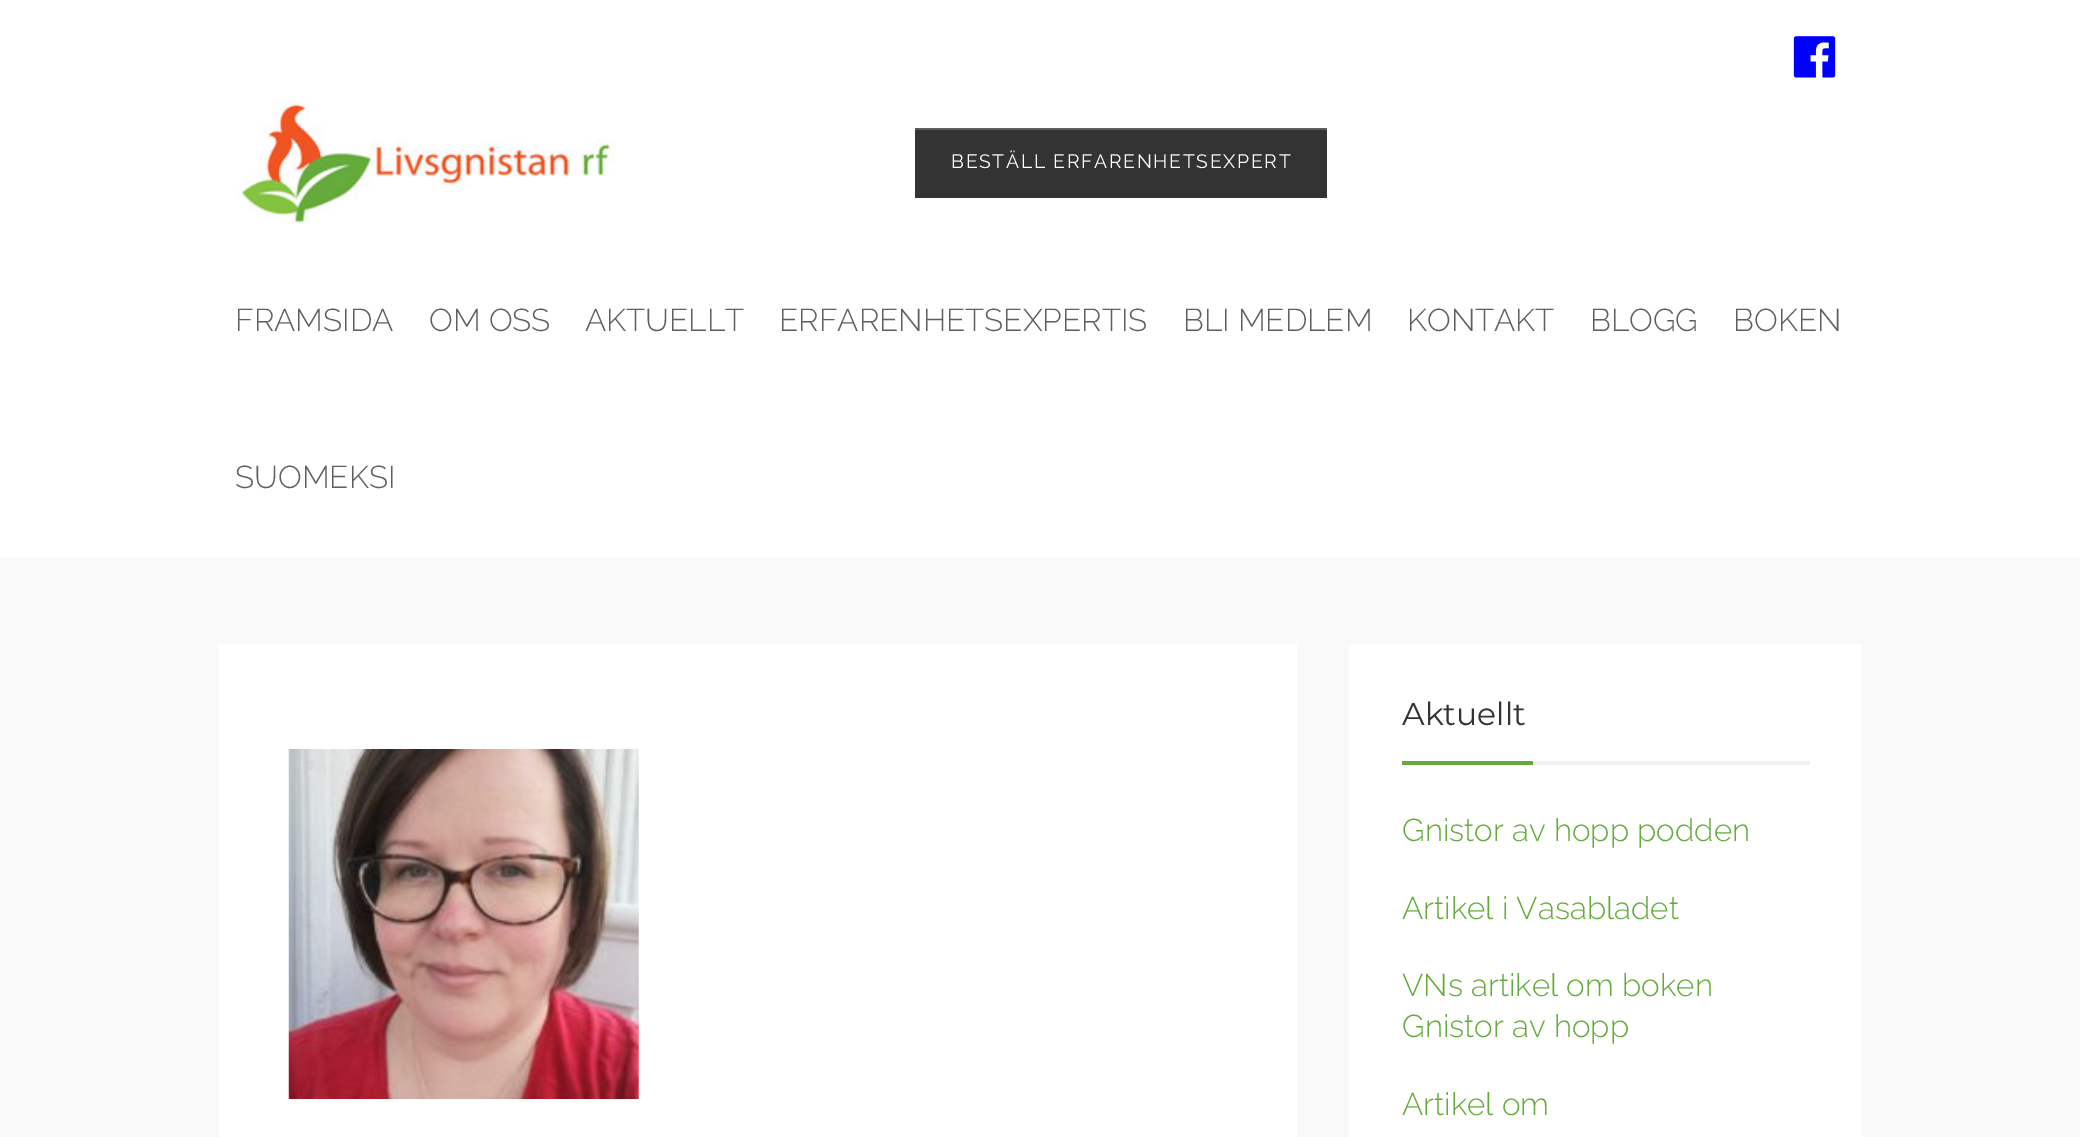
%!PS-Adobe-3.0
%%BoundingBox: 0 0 2080 1137
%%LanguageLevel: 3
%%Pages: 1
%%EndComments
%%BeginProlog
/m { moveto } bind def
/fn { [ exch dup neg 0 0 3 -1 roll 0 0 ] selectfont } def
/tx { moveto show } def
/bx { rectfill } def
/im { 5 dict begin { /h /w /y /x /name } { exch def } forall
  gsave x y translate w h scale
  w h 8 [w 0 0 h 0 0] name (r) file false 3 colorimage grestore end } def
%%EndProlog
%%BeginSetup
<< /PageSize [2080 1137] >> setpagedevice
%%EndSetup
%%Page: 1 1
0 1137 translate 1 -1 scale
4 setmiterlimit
0.976 setgray
0 0 2080 1137 bx
1 setgray
0 0 2080 557 bx
(image0.raw) 1793 36 43 42 im
(image1.raw) 236 101 379 123 im
0.2 setgray
915 130 412 68 bx
0.361 setgray
915 128 412 2 bx
/Raleway-Regular 19.25 fn
1 setgray
951 168 m 1.75 0 (BESTÄLL ERFARENHETSEXPERT) ashow
/Raleway-Light 31.5 fn
0.373 setgray
(FRAMSIDA) 235 331 tx
(OM OSS) 429 331 tx
(AKTUELLT) 585 331 tx
(ERFARENHETSEXPERTIS) 779 331 tx
(BLI MEDLEM) 1183 331 tx
(KONTAKT) 1407 331 tx
(BLOGG) 1590 331 tx
(BOKEN) 1733 331 tx
(SUOMEKSI) 235 488 tx
1 setgray
219 644 1078 493 bx
(image2.raw) 288 749 351 350 im
1349 644 513 493 bx
0.945 setgray
1533 761 277 4 bx
/Montserrat-Regular 31.5 fn
0.2 setgray
(Aktuellt) 1402 725 tx
0.396 0.671 0.231 setrgbcolor
1402 761 131 4 bx
/Raleway-Light 31.5 fn
(Gnistor av hopp podden) 1402 841 tx
(Artikel i Vasabladet) 1402 919 tx
(VNs artikel om boken) 1402 996 tx
(Gnistor av hopp) 1402 1037 tx
(Artikel om) 1402 1115 tx
showpage
%%EOF
